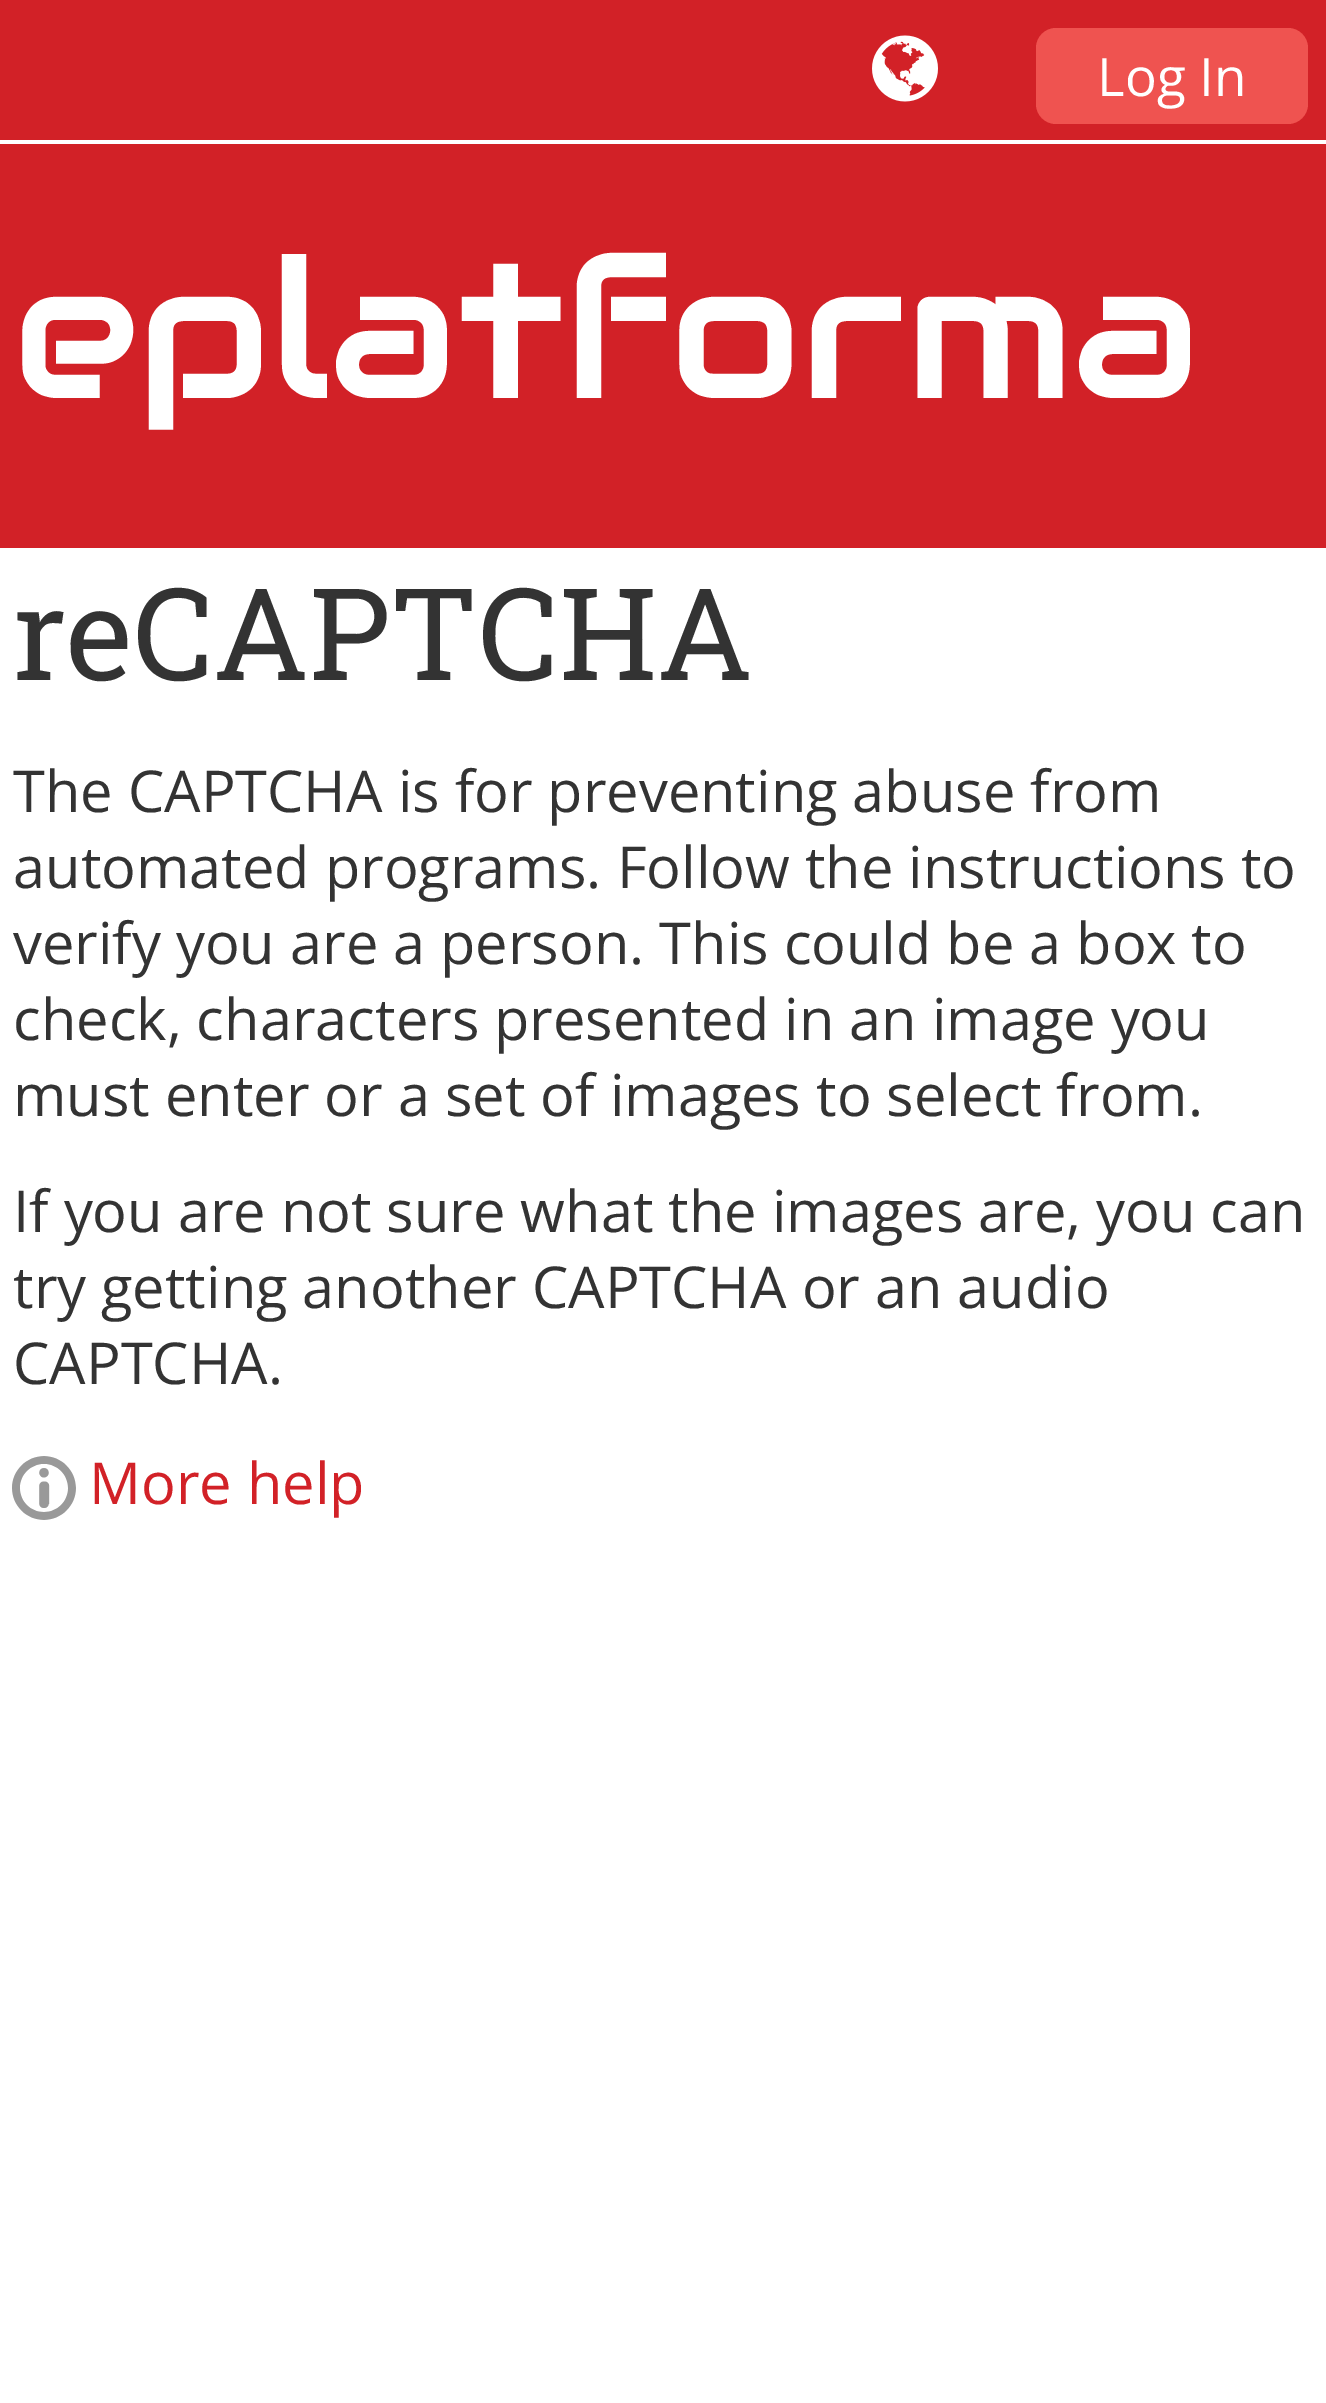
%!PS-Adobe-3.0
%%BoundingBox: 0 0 1326 2403
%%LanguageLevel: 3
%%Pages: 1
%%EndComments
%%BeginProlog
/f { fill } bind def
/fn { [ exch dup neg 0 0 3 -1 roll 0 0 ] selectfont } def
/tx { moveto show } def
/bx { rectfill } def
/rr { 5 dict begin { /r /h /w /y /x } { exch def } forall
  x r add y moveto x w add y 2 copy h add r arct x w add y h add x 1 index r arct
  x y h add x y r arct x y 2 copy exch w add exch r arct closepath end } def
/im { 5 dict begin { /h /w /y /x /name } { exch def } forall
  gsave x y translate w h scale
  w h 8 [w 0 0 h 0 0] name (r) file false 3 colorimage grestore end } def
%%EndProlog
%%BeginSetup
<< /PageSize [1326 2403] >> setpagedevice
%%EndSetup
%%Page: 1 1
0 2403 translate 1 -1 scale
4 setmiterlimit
1 setgray
0 0 1326 2403 bx
0.824 0.129 0.153 setrgbcolor
0 0 1326 548 bx
1 setgray
0 140 1326 4 bx
(image0.raw) 872 35 66 67 im
0.937 0.325 0.314 setrgbcolor
1036 28 272 96 20 rr f
/OpenSans-Regular 53 fn
1 setgray
(Log In) 1097 96 tx
/Audiowide-Regular 192 fn
(eplatforma) 13 398 tx
/RobotoSlab-Regular 128 fn
0.2 setgray
(reCAPTCHA) 13 680 tx
/OpenSans-Regular 57.75 fn
(The CAPTCHA is for preventing abuse from) 13 812 tx
(automated programs. Follow the instructions to) 13 888 tx
(verify you are a person. This could be a box to) 13 964 tx
(check, characters presented in an image you) 13 1040 tx
(must enter or a set of images to select from.) 13 1116 tx
(If you are not sure what the images are, you can) 13 1232 tx
(try getting another CAPTCHA or an audio) 13 1308 tx
(CAPTCHA.) 13 1384 tx
(image1.raw) 12 1456 64 64 im
0.824 0.129 0.153 setrgbcolor
(More help) 89 1504 tx
showpage
%%EOF
